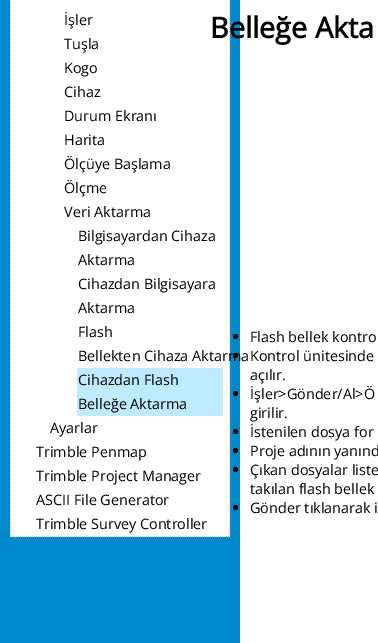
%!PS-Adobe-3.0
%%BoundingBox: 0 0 378 643
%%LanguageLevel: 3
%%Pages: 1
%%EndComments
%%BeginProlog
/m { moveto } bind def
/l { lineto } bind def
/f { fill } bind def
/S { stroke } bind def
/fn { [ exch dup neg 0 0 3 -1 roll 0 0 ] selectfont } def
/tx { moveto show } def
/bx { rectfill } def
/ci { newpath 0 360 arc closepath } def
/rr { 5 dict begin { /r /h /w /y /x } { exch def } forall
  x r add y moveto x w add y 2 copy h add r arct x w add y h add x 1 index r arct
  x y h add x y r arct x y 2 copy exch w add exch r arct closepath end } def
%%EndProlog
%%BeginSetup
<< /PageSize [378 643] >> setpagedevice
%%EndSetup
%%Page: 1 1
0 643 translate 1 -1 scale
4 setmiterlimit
1 setgray
0 0 378 643 bx
0 0.533 0.8 setrgbcolor
0 0 240 643 bx
1 setgray
10 0 220 537 bx
0.8 setgray
[1 1] 0 setdash
229.5 -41 m 229.5 537 l S
10 536.5 m 230 536.5 l S
10.5 -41 m 10.5 537 l S
/OpenSans-Regular 14.4 fn
0 setgray
(İşler) 64 25 tx
(Tuşla) 64 49 tx
(Kogo) 64 73 tx
(Cihaz) 64 97 tx
(Durum Ekranı) 64 121 tx
(Harita) 64 145 tx
(Ölçüye Başlama) 64 169 tx
(Ölçme) 64 193 tx
(Veri Aktarma) 64 217 tx
(Bilgisayardan Cihaza) 78 241 tx
(Aktarma) 78 265 tx
(Cihazdan Bilgisayara) 78 289 tx
(Aktarma) 78 313 tx
(Flash) 78 337 tx
(Bellekten Cihaza Aktarma) 78 361 tx
0.745 0.922 1 setrgbcolor
77 368 146 48 2 rr f
0 setgray
(Cihazdan Flash) 78 385 tx
(Belleğe Aktarma) 78 409 tx
(Ayarlar) 50 433 tx
(Trimble Penmap) 36 457 tx
(Trimble Project Manager) 36 481 tx
(ASCII File Generator) 36 505 tx
(Trimble Survey Controller) 36 529 tx
/OpenSans-Bold 28.75 fn
(Belleğe Akta) 210 38 tx
235.5 336.5 2.5 ci f
/OpenSans-Regular 14.4 fn
(Flash bellek kontro) 250 342 tx
235.5 355.5 2.5 ci f
(Kontrol ünitesinde) 250 361 tx
(açılır.) 250 380 tx
235.5 393.5 2.5 ci f
(İşler>Gönder/Al>Ö) 250 399 tx
(girilir.) 250 418 tx
235.5 431.5 2.5 ci f
(İstenilen dosya for) 250 437 tx
235.5 450.5 2.5 ci f
(Proje adının yanınd) 250 456 tx
235.5 469.5 2.5 ci f
(Çıkan dosyalar liste) 250 475 tx
(takılan flash bellek) 250 494 tx
235.5 507.5 2.5 ci f
(Gönder tıklanarak i) 250 513 tx
showpage
%%EOF
